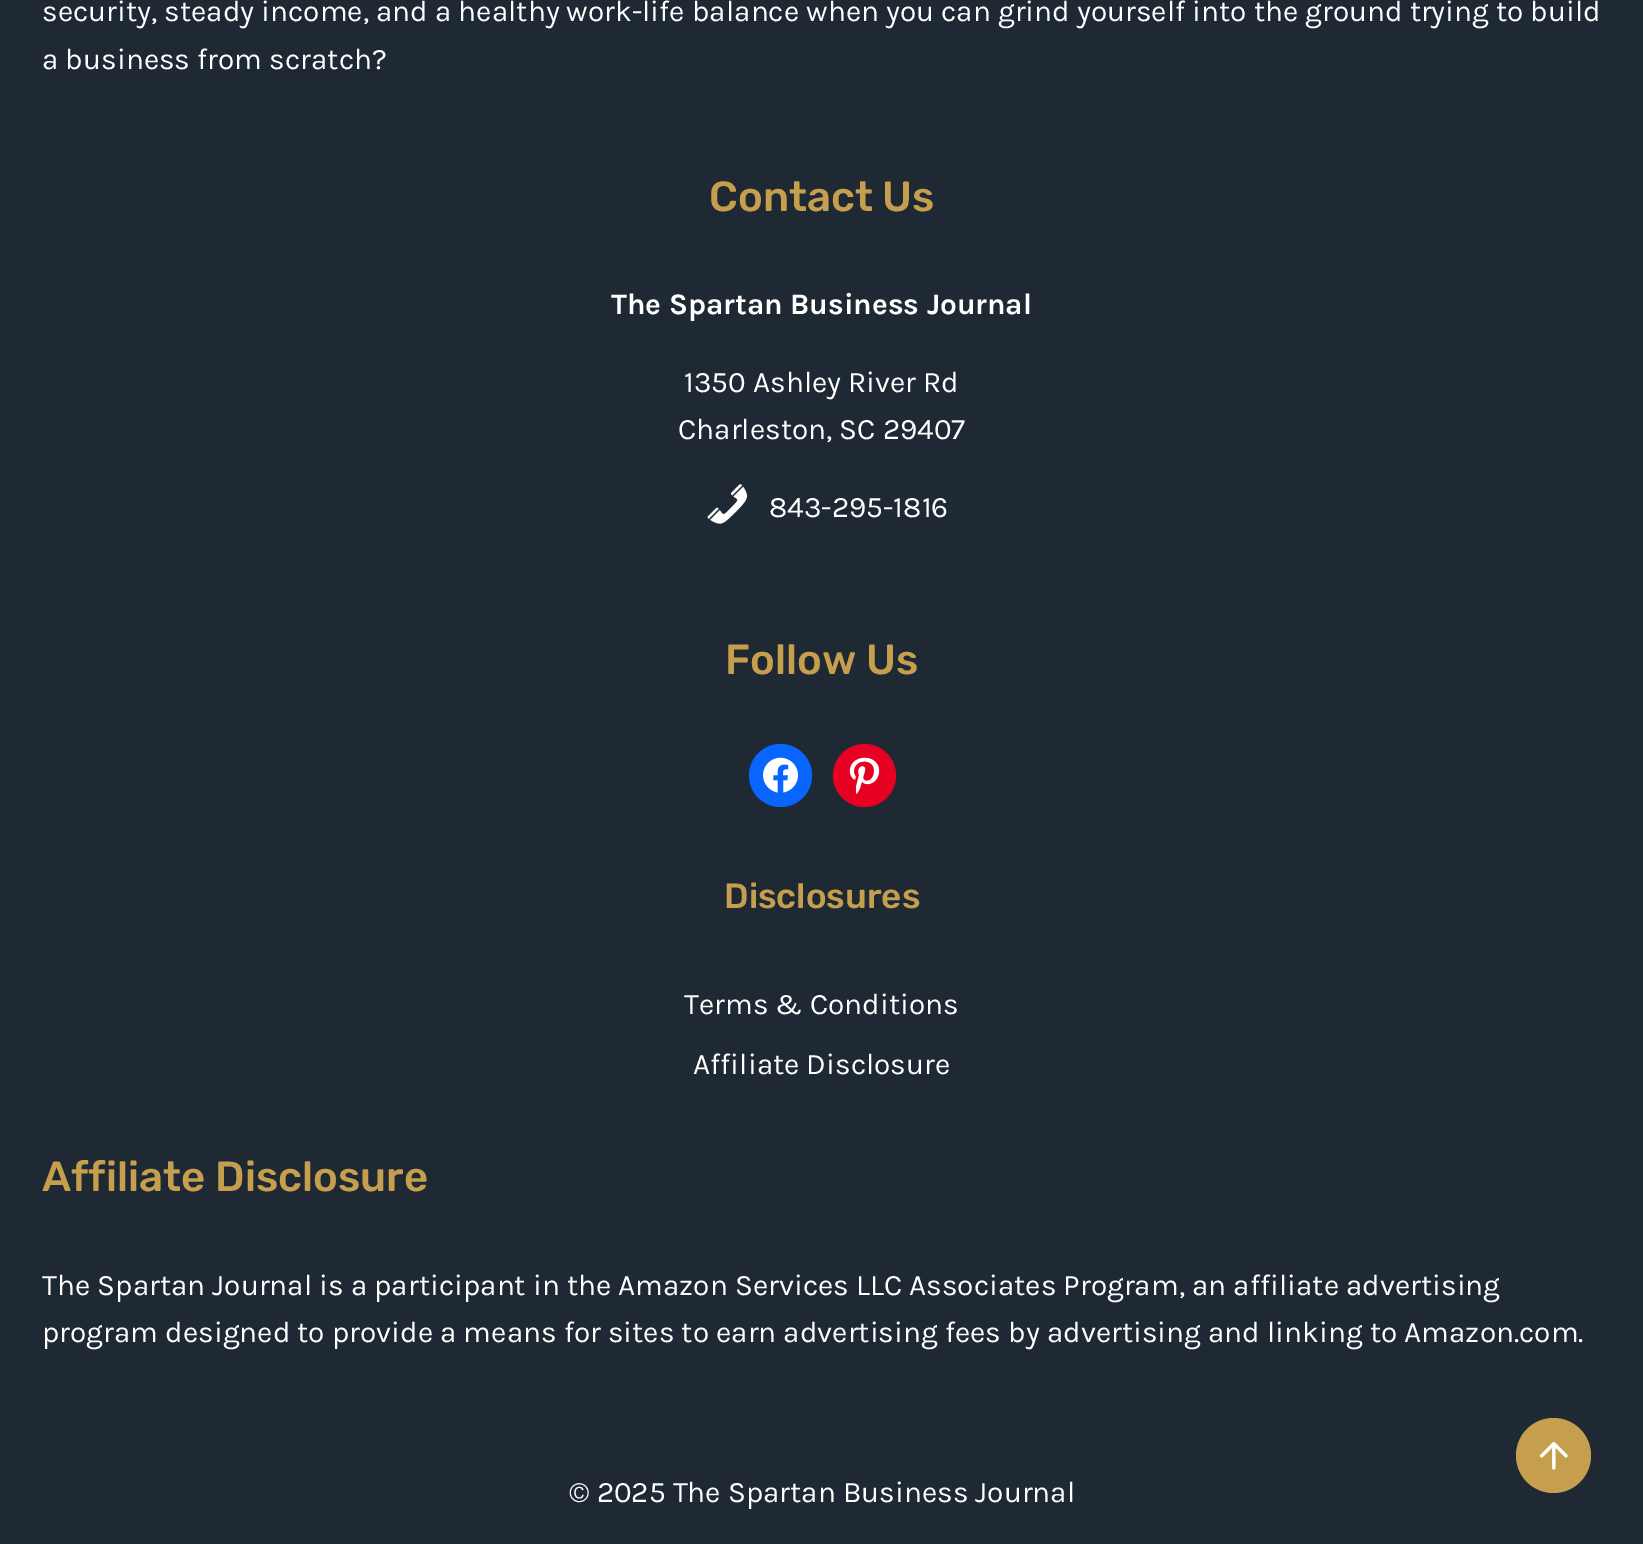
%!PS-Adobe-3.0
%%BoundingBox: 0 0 1643 1544
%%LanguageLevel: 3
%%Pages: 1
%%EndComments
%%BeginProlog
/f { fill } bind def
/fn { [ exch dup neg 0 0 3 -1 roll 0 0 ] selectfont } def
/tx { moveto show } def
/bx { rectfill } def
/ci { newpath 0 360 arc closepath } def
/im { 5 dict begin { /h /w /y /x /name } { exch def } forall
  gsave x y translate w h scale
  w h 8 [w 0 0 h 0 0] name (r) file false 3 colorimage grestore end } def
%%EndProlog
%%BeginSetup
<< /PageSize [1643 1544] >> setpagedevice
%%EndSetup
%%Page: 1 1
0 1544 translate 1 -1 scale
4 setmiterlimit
0.122 0.161 0.2 setrgbcolor
0 0 1643 1544 bx
/Karla-Regular 29.75 fn
1 setgray
(security, steady income, and a healthy work-life balance when you can grind yourself into the ground trying to build) 42 21 tx
(a business from scratch?) 42 69 tx
/Rubik-Medium 42 fn
0.773 0.624 0.302 setrgbcolor
(Contact Us) 709 211 tx
/Karla-Bold 29.75 fn
1 setgray
(The Spartan Business Journal) 611 314 tx
/Karla-Regular 29.75 fn
(1350 Ashley River Rd) 684 392 tx
(Charleston, SC 29407) 678 439 tx
(image0.raw) 707 484 41 40 im
(843-295-1816) 769 517 tx
/Rubik-Medium 42 fn
0.773 0.624 0.302 setrgbcolor
(Follow Us) 725 674 tx
0.031 0.4 1 setrgbcolor
780.5 775.5 31.5 ci f
(image1.raw) 763 757 35 36 im
0.902 0.004 0.133 setrgbcolor
864.5 775.5 31.5 ci f
(image2.raw) 849 757 31 37 im
/Rubik-Medium 35 fn
0.773 0.624 0.302 setrgbcolor
(Disclosures) 724 908 tx
/Karla-Regular 29.75 fn
1 setgray
(Terms & Conditions) 684 1014 tx
(Affiliate Disclosure) 693 1074 tx
/Rubik-Medium 42 fn
0.773 0.624 0.302 setrgbcolor
(Affiliate Disclosure) 42 1191 tx
/Karla-Regular 29.75 fn
1 setgray
(The Spartan Journal is a participant in the Amazon Services LLC Associates Program, an affiliate advertising) 42 1295 tx
(program designed to provide a means for sites to earn advertising fees by advertising and linking to Amazon.com.) 42 1342 tx
(© 2025 The Spartan Business Journal) 569 1502 tx
0.773 0.624 0.302 setrgbcolor
1553.5 1455.5 37.5 ci f
(image3.raw) 1540 1442 28 28 im
showpage
%%EOF
